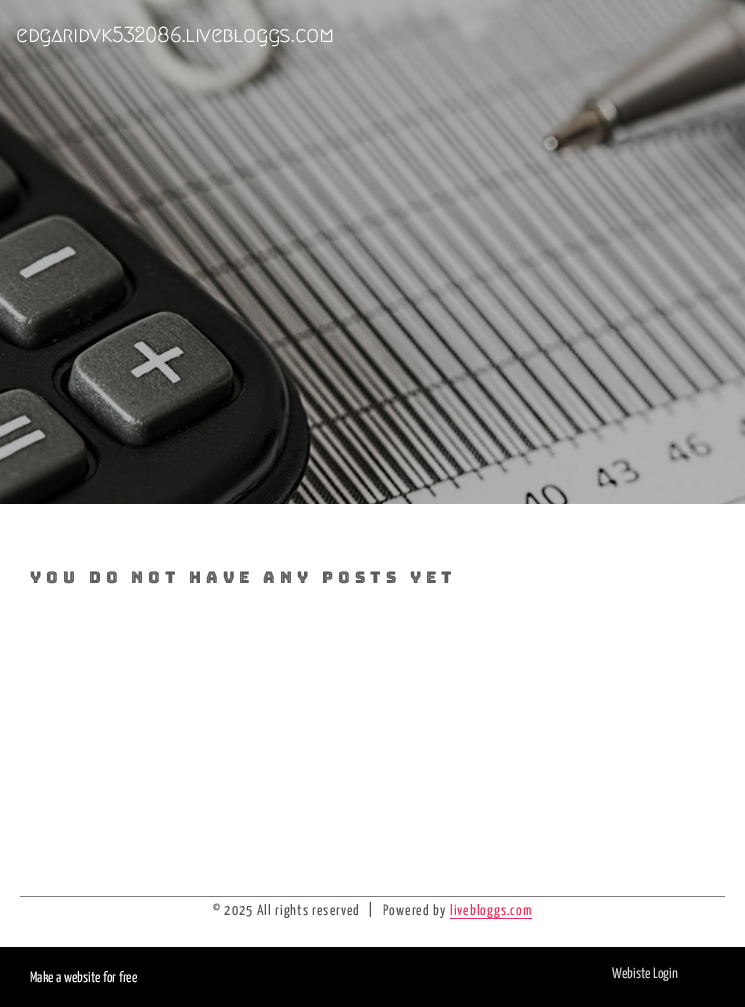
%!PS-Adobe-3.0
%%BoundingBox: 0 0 745 1007
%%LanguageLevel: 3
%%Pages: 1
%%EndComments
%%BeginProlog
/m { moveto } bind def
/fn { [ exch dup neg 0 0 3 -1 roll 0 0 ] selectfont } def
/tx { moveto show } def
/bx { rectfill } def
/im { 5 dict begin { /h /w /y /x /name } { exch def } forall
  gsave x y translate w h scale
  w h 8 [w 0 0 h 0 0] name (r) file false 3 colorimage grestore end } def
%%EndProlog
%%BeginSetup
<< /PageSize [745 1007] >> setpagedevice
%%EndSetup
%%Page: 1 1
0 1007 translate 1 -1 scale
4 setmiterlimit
1 setgray
0 0 745 1007 bx
(image0.raw) 0 0 745 504 im
/Megrim-Bold 21 fn
(edgaridvk532086.livebloggs.com) 16 42 tx
/BungeeInline-Regular 16 fn
0.365 0.361 0.361 setrgbcolor
30 583 m 5 0 (You do not have any posts yet) ashow
0.482 0.475 0.475 setrgbcolor
20 896 705 1 bx
/YanoneKaffeesatz-Regular 15 fn
0.322 0.306 0.306 setrgbcolor
213 915 m 1 0 (© 2025 All rights reserved) ashow
368 914 m 1 0 (|) ashow
383 915 m 1 0 (Powered by) ashow
0.922 0.184 0.357 setrgbcolor
450 915 m 1 0 (livebloggs.com) ashow
0.918 0.18 0.353 setrgbcolor
450 918 82 1 bx
0 setgray
0 947 745 60 bx
1 setgray
(Make a website for free) 30 982 tx
0.831 setgray
(Webiste Login) 612 978 tx
showpage
%%EOF
